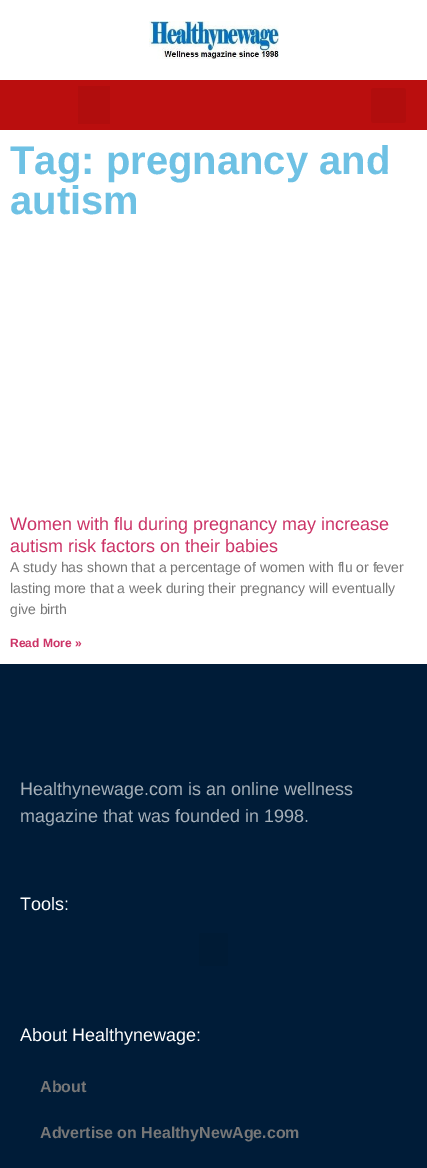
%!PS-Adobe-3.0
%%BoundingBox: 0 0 427 1168
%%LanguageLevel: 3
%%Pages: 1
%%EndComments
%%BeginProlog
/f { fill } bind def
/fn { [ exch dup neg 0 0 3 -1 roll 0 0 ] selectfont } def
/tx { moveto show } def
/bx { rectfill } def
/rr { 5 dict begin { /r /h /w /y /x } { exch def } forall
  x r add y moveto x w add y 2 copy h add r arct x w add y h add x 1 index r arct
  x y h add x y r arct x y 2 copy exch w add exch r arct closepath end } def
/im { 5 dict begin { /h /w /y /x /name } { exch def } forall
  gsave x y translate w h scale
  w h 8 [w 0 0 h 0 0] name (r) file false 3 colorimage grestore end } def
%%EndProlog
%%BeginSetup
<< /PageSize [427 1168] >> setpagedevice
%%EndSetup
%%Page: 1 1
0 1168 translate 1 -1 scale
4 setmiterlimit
1 setgray
0 0 427 1168 bx
(image0.raw) 149 21 130 38 im
0.729 0.055 0.055 setrgbcolor
0 80 427 50 bx
0.694 0.051 0.051 setrgbcolor
78 86 32 38 bx
371 88 35 35 3 rr f
/LiberationSans-Bold 40 fn
0.431 0.757 0.894 setrgbcolor
(Tag: pregnancy and) 10 174 tx
(autism) 10 214 tx
/LiberationSans-Regular 18 fn
0.8 0.2 0.4 setrgbcolor
(Women with flu during pregnancy may increase) 10 530 tx
(autism risk factors on their babies) 10 552 tx
/LiberationSans-Regular 14 fn
0.467 setgray
(A study has shown that a percentage of women with flu or fever) 10 572 tx
(lasting more that a week during their pregnancy will eventually) 10 593 tx
(give birth) 10 614 tx
/LiberationSans-Bold 12 fn
0.8 0.2 0.4 setrgbcolor
(Read More ») 10 647 tx
0 0.11 0.22 setrgbcolor
0 664 427 504 bx
/LiberationSans-Regular 18 fn
0.651 0.69 0.725 setrgbcolor
(Healthynewage.com is an online wellness) 20 795 tx
(magazine that was founded in 1998.) 20 822 tx
1 setgray
(Tools:) 20 910 tx
0 0.106 0.208 setrgbcolor
199 933 29 33 3 rr f
1 setgray
(About Healthynewage:) 20 1041 tx
/LiberationSans-Bold 16 fn
0.467 setgray
(About) 40 1092 tx
(Advertise on HealthyNewAge.com) 40 1138 tx
showpage
%%EOF
